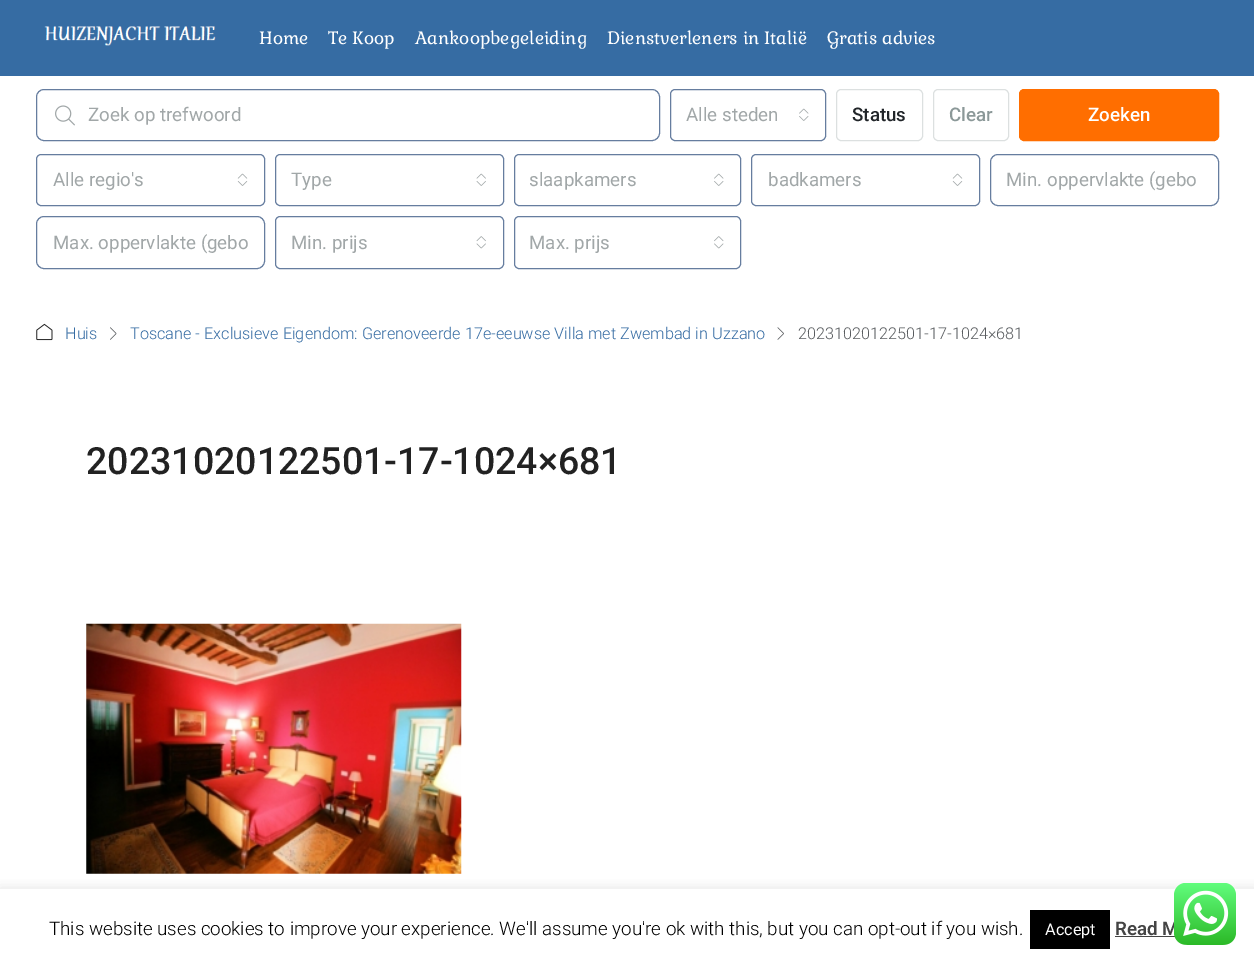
%!PS-Adobe-3.0
%%BoundingBox: 0 0 1254 963
%%LanguageLevel: 3
%%Pages: 1
%%EndComments
%%BeginProlog
/f { fill } bind def
/S { stroke } bind def
/q { gsave } bind def
/Q { grestore } bind def
/fn { [ exch dup neg 0 0 3 -1 roll 0 0 ] selectfont } def
/tx { moveto show } def
/bx { rectfill } def
/al { dup .setfillconstantalpha .setstrokeconstantalpha } def
/rr { 5 dict begin { /r /h /w /y /x } { exch def } forall
  x r add y moveto x w add y 2 copy h add r arct x w add y h add x 1 index r arct
  x y h add x y r arct x y 2 copy exch w add exch r arct closepath end } def
/sh { 12 dict begin { /a /b /q /h /w /y /x } { exch def } forall gsave /was 0 def
  9 -2 -9 { dup b mul 4 div /e exch def 1 sub .425 mul 2.718 exch exp 1 add a .99 .min exch div /now exch def
    1 1 now sub 1 was sub div sub al /was now def
    w h .min e 2 mul add 0 gt { x e sub y e sub w e 2 mul add h e 2 mul add
      q e add b .6 mul add w h .min 2 div e add .min 0 .max rr fill } if } for grestore end } def
/im { 5 dict begin { /h /w /y /x /name } { exch def } forall
  gsave x y translate w h scale
  w h 8 [w 0 0 h 0 0] name (r) file false 3 colorimage grestore end } def
%%EndProlog
%%BeginSetup
<< /PageSize [1254 963] /PageUsesTransparency true >> setpagedevice
%%EndSetup
%%Page: 1 1
0 .pushpdf14devicefilter
0 963 translate 1 -1 scale
4 setmiterlimit
1 setgray
0 0 1254 963 bx
0.212 0.424 0.639 setrgbcolor
0 0 1254 76 bx
(image0.raw) 44 26 172 20 im
/Gabriela-Regular 17.5 fn
1 setgray
(Home) 259 44 tx
(Te Koop) 328 44 tx
(Aankoopbegeleiding) 415 44 tx
(Dienstverleners in Italië) 607 44 tx
(Gratis advies) 827 44 tx
0.4 0.49 0.624 setrgbcolor
36.5 89.5 623 51 7.5 rr S
(image1.raw) 55 105 20 21 im
/Roboto-Regular 18.75 fn
0.631 0.655 0.659 setrgbcolor
(Zoek op trefwoord) 88 121 tx
0.4 0.49 0.624 setrgbcolor
670.5 89.5 155 51 4.5 rr S
0.631 0.655 0.659 setrgbcolor
(Alle steden) 686 121 tx
(image2.raw) 799 108 10 13 im
0.863 0.878 0.878 setrgbcolor
836.5 89.5 86 51 4.5 rr S
/Roboto-Medium 18.75 fn
0.129 0.145 0.161 setrgbcolor
(Status) 852 121 tx
0.863 0.878 0.878 setrgbcolor
933.5 89.5 75 51 4.5 rr S
0.545 0.596 0.596 setrgbcolor
(Clear) 949 121 tx
1 0.431 0 setrgbcolor
1019.5 89.5 199 51 4.5 rr q f Q
S
1 setgray
(Zoeken) 1088 121 tx
0.4 0.49 0.624 setrgbcolor
36.5 154.5 228 51 4.5 rr S
/Roboto-Regular 18.75 fn
0.631 0.655 0.659 setrgbcolor
(Alle regio's) 53 186 tx
(image3.raw) 237 173 11 13 im
0.4 0.49 0.624 setrgbcolor
275.5 154.5 228 51 4.5 rr S
0.631 0.655 0.659 setrgbcolor
(Type) 291 186 tx
(image4.raw) 476 173 10 13 im
0.4 0.49 0.624 setrgbcolor
514.5 154.5 226 51 4.5 rr S
0.631 0.655 0.659 setrgbcolor
(slaapkamers) 529 186 tx
(image2.raw) 714 173 10 13 im
0.4 0.49 0.624 setrgbcolor
751.5 154.5 228 51 4.5 rr S
0.631 0.655 0.659 setrgbcolor
(badkamers) 768 186 tx
(image3.raw) 952 173 11 13 im
0.4 0.49 0.624 setrgbcolor
990.5 154.5 228 51 7.5 rr S
0.631 0.655 0.659 setrgbcolor
(Min. oppervlakte \(gebo) 1006 186 tx
0.4 0.49 0.624 setrgbcolor
36.5 216.5 228 52 7.5 rr S
0.631 0.655 0.659 setrgbcolor
(Max. oppervlakte \(gebo) 53 249 tx
0.4 0.49 0.624 setrgbcolor
275.5 216.5 228 52 4.5 rr S
0.631 0.655 0.659 setrgbcolor
(Min. prijs) 291 249 tx
(image5.raw) 476 236 10 13 im
0.4 0.49 0.624 setrgbcolor
514.5 216.5 226 52 4.5 rr S
0.631 0.655 0.659 setrgbcolor
(Max. prijs) 529 249 tx
(image6.raw) 714 236 10 13 im
(image7.raw) 36 323 17 18 im
/Roboto-Light 16.25 fn
0.212 0.424 0.639 setrgbcolor
(Huis) 65 339 tx
(image8.raw) 110 327 7 13 im
(Toscane - Exclusieve Eigendom: Gerenoveerde 17e-eeuwse Villa met Zwembad in Uzzano) 130 339 tx
(image9.raw) 777 327 7 13 im
0.349 0.361 0.373 setrgbcolor
(20231020122501-17-1024×681) 798 339 tx
/Roboto-Medium 37.5 fn
0.133 setgray
(20231020122501-17-1024×681) 86 474 tx
(image10.raw) 86 623 376 251 im
q
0 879 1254 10 rectclip
0.675 0.671 0.671 setrgbcolor
0 888 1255 75 0 6 0.3 sh
Q
/Roboto-Light 18.75 fn
0 setgray
(This website uses cookies to improve your experience. We'll assume you're ok with this, but you can opt-out if you wish.) 49 935 tx
1030 910 80 39 bx
/Roboto-Regular 16.25 fn
1 setgray
(Accept) 1045 935 tx
/Roboto-SemiBold 18.75 fn
0.267 setgray
(Read M) 1115 935 tx
1115 936 60 1 bx
(image11.raw) 1174 883 62 62 im
.poppdf14devicefilter showpage
%%EOF
